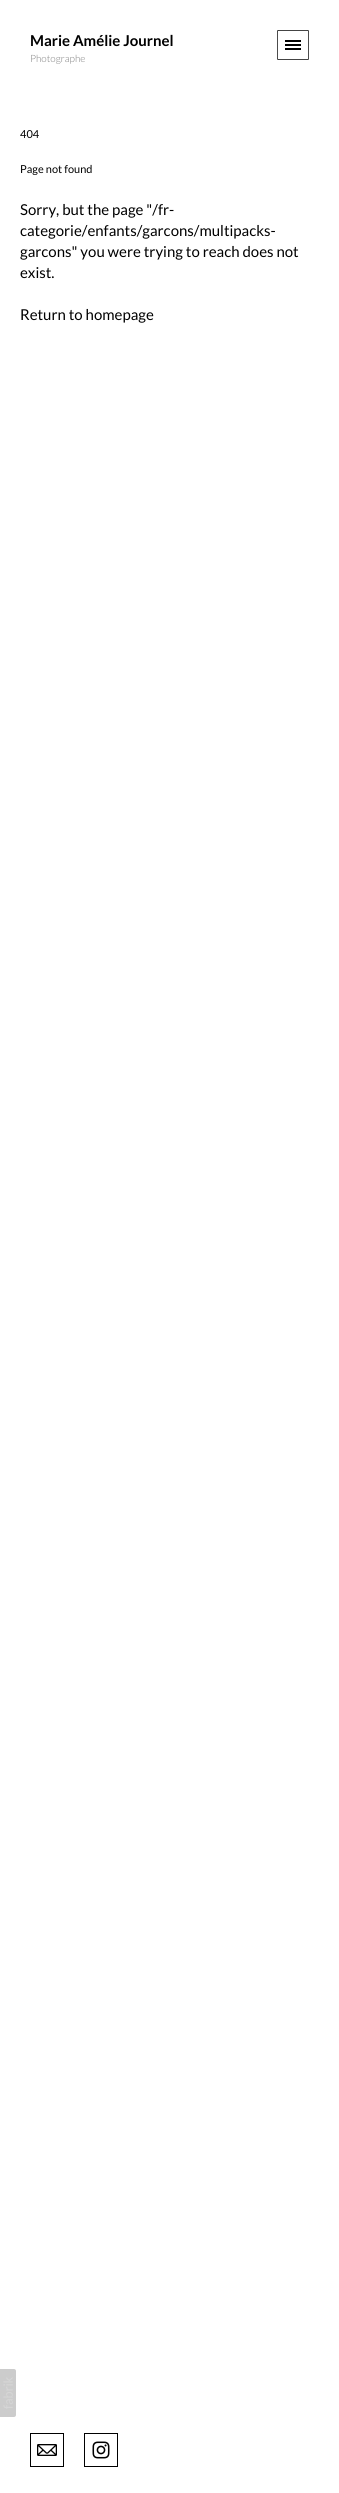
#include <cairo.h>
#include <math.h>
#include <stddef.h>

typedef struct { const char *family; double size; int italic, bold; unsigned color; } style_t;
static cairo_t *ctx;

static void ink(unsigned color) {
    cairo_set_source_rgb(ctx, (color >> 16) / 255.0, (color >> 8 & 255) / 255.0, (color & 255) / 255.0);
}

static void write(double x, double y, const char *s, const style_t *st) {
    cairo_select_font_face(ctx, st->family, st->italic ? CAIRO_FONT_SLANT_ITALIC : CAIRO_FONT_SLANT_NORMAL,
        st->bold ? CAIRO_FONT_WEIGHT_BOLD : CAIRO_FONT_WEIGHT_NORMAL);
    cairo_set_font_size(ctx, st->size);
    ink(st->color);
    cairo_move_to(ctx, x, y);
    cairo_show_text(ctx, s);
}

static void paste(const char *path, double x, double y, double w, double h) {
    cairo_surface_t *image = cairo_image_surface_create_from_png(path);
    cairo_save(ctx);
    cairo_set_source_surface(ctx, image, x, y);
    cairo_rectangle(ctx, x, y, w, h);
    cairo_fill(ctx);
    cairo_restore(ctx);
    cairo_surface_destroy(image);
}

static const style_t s1 = {"Lato", 15, 0, 1, 0x000000};
static const style_t s2 = {"Lato Light", 10, 0, 0, 0x7c7c7c};
static const style_t s3 = {"Lato", 11, 0, 0, 0x000000};
static const style_t s4 = {"Lato", 15, 0, 0, 0x000000};

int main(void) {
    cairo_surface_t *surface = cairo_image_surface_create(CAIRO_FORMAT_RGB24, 339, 2493);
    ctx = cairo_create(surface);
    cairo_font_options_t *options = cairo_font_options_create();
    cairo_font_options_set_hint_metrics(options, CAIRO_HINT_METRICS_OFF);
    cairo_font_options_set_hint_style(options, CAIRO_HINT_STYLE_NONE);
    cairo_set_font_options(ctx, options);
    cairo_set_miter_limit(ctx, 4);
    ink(0xffffff);
    cairo_paint(ctx);
    write(30, 46, "Marie Amélie Journel", &s1);
    write(30, 62, "Photographe", &s2);
    paste("pic1.png", 277, 30, 32, 30);
    write(20, 138, "404", &s3);
    write(20, 173, "Page not found", &s3);
    write(20, 215, "Sorry, but the page \"/fr-", &s4);
    write(20, 236, "categorie/enfants/garcons/multipacks-", &s4);
    write(20, 257, "garcons\" you were trying to reach does not", &s4);
    write(20, 278, "exist.", &s4);
    write(20, 320, "Return to homepage", &s4);
    paste("pic2.png", 0, 2369, 16, 48);
    cairo_rectangle(ctx, 30.5, 2433.5, 33, 33);
    cairo_set_line_width(ctx, 1);
    cairo_stroke(ctx);
    paste("pic3.png", 37, 2444, 20, 12);
    cairo_rectangle(ctx, 84.5, 2433.5, 33, 33);
    cairo_stroke(ctx);
    paste("pic4.png", 92, 2441, 18, 18);
    cairo_surface_write_to_png(surface, "screenshot.png");
    cairo_font_options_destroy(options);
    cairo_destroy(ctx);
    cairo_surface_destroy(surface);
    return 0;
}
